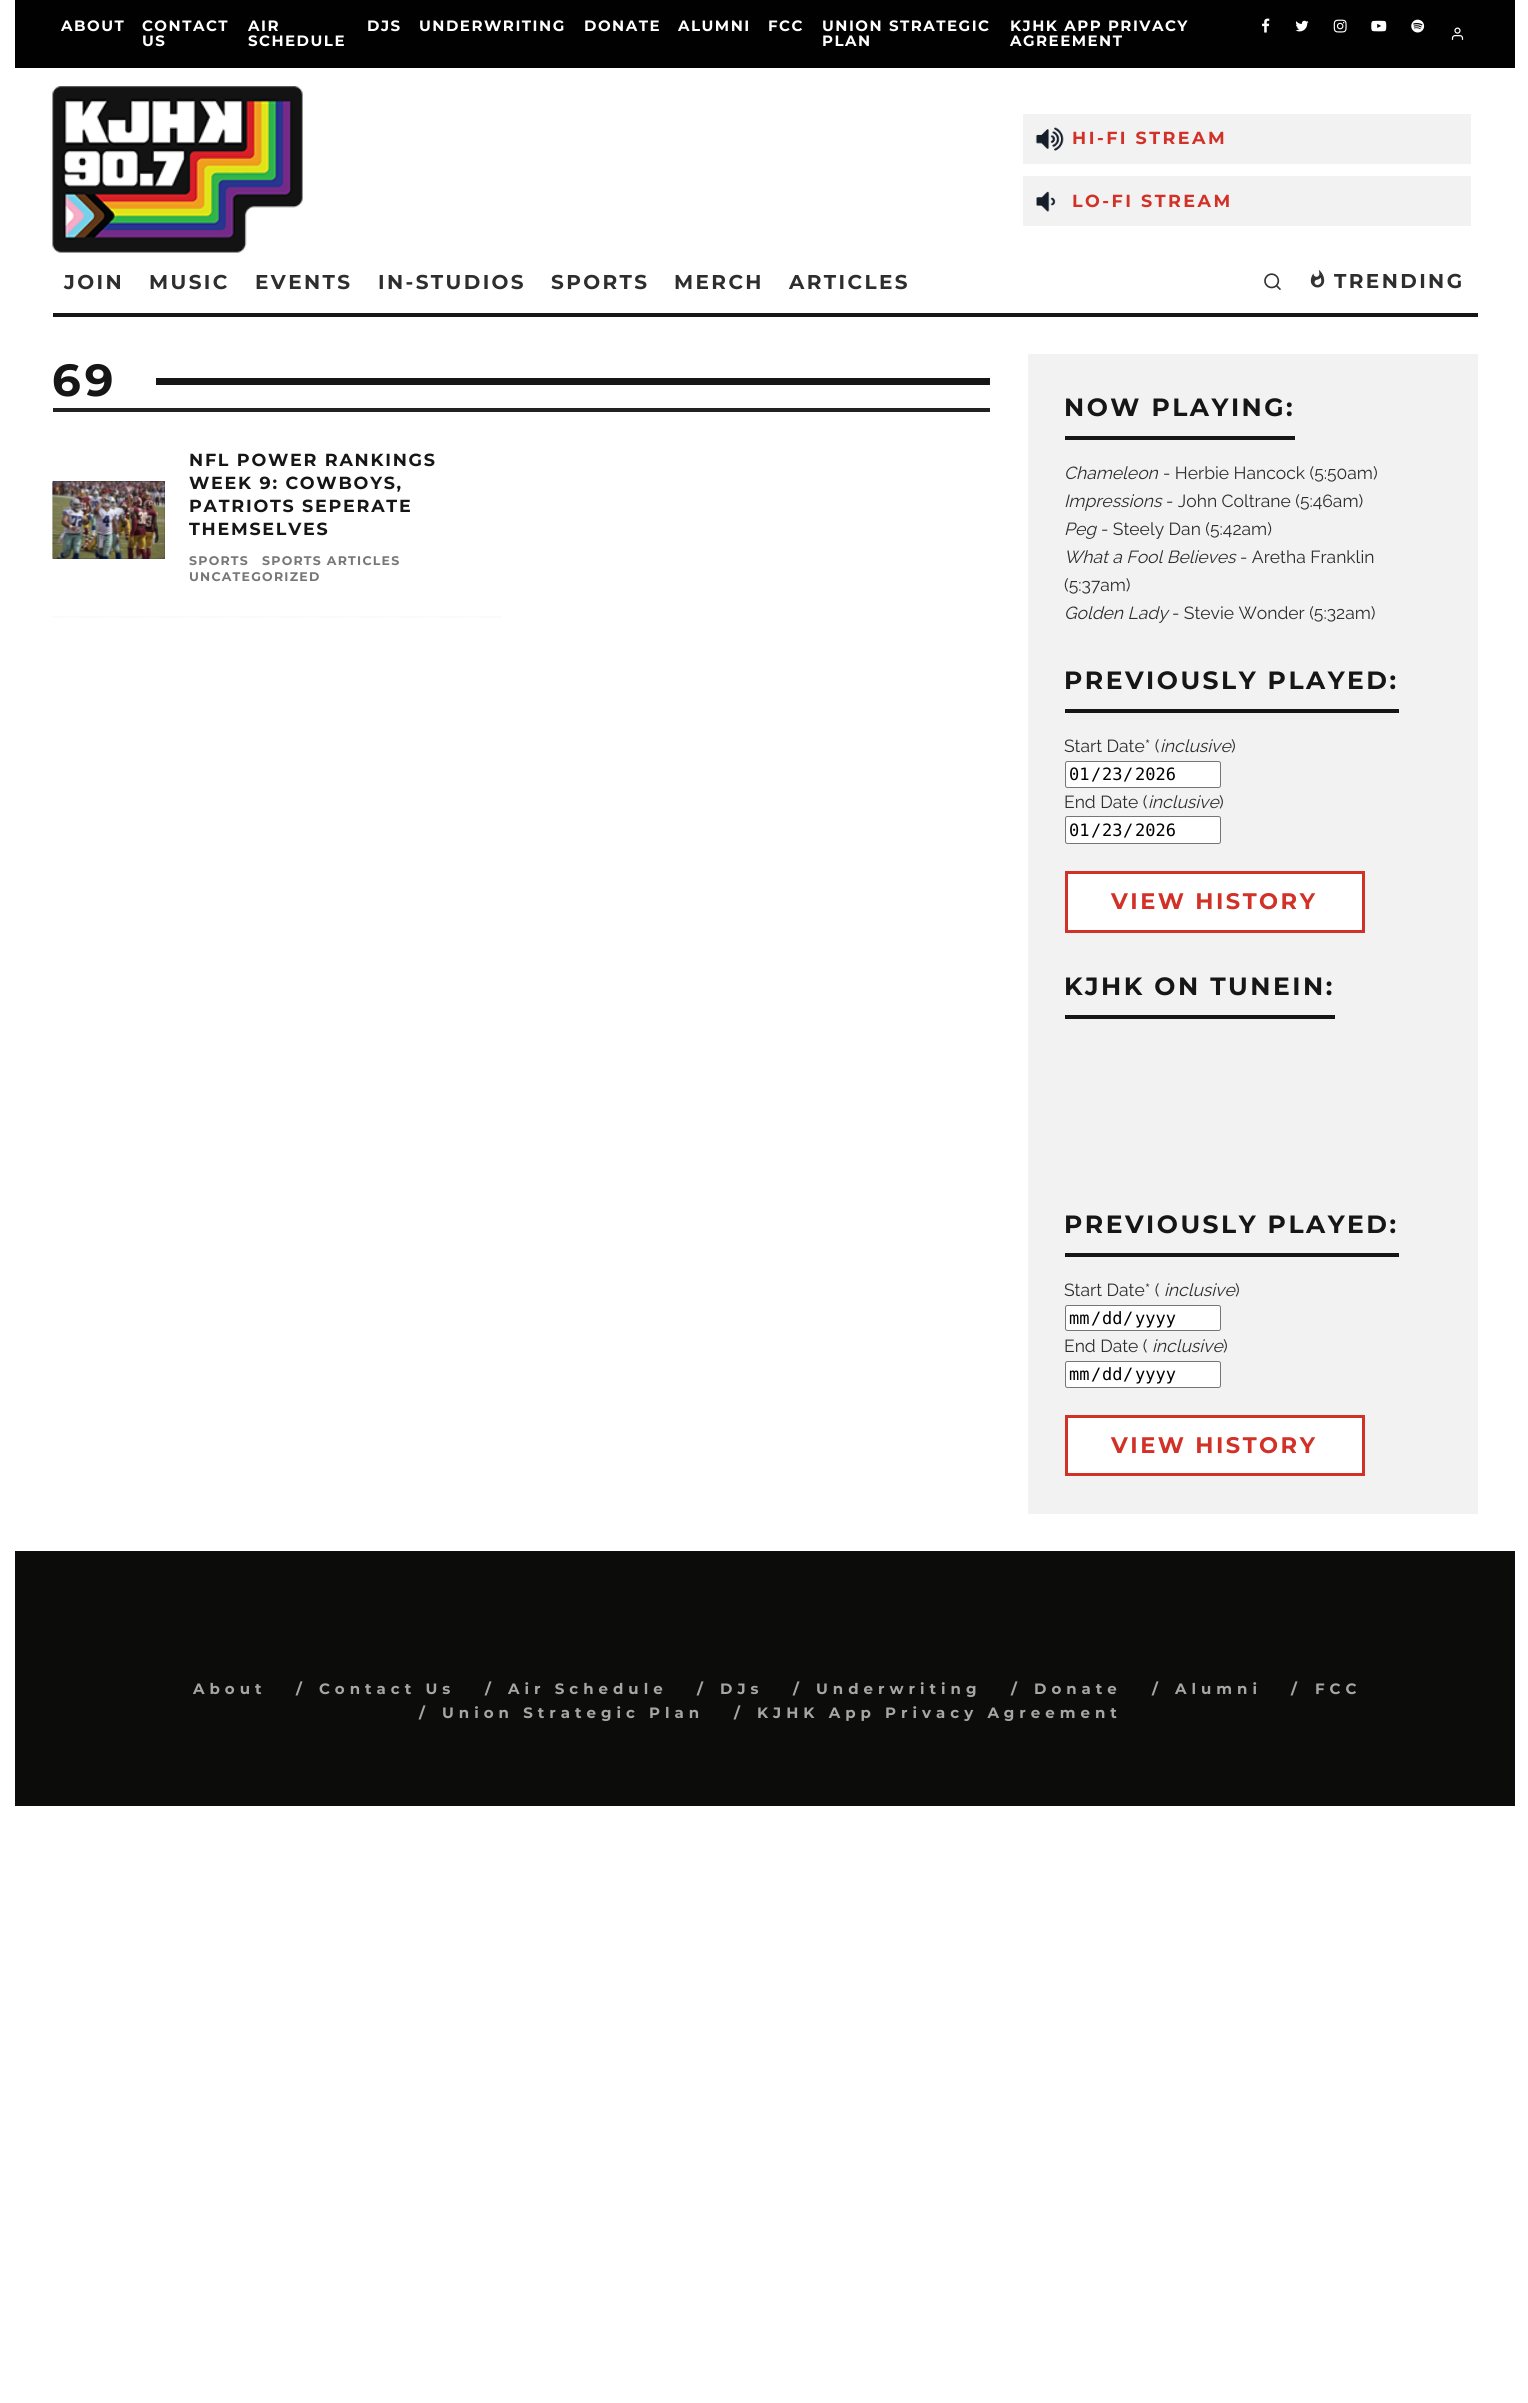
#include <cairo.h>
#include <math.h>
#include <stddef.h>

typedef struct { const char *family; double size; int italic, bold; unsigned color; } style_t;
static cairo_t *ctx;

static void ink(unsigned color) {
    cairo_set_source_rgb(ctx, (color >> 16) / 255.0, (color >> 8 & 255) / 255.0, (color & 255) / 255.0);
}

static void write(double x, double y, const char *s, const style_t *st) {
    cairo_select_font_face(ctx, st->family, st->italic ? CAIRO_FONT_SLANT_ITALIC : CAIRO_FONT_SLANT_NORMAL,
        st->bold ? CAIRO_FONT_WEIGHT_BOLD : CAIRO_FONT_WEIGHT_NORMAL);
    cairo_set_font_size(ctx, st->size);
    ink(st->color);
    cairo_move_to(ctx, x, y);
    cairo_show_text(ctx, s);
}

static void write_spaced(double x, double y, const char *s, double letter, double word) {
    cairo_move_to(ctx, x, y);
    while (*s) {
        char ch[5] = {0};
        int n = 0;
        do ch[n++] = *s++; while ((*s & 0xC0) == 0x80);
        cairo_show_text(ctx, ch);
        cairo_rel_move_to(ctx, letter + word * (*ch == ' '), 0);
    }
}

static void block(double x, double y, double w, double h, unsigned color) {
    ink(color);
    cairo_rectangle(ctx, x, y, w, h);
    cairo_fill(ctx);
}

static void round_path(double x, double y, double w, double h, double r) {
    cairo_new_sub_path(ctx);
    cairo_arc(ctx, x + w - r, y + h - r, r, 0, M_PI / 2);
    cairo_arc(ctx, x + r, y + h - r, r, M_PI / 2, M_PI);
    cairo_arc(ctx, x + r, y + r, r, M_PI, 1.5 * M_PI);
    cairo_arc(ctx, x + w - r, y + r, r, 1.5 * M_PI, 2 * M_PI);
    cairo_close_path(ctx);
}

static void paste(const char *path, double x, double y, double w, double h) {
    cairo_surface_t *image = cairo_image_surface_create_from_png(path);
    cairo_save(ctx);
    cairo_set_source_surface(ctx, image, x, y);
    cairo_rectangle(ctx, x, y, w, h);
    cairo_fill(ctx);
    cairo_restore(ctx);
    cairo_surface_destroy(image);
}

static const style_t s1 = {"Raleway", 17.5, 1, 0, 0x2e2e2e};
static const style_t s2 = {"Raleway", 17.5, 0, 0, 0x2e2e2e};
static const style_t s3 = {"DejaVu Sans Mono", 17, 0, 0, 0x000000};

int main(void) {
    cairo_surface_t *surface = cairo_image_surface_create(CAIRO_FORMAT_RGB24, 1528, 2403);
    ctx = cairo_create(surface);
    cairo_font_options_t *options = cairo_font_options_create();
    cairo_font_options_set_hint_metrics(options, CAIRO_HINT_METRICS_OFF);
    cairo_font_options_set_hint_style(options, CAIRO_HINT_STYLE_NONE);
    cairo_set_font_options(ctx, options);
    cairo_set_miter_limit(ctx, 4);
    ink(0xffffff);
    cairo_paint(ctx);
    block(15, 0, 1500, 68, 0x010101);
    cairo_select_font_face(ctx, "Montserrat", CAIRO_FONT_SLANT_NORMAL, CAIRO_FONT_WEIGHT_BOLD);
    cairo_set_font_size(ctx, 15);
    ink(0xffffff);
    write_spaced(61, 31, "ABOUT", 1.5, 0);
    write_spaced(142, 31, "CONTACT", 1.5, 0);
    write_spaced(142, 46, "US", 1.5, 0);
    write_spaced(248, 31, "AIR", 1.5, 0);
    write_spaced(248, 46, "SCHEDULE", 1.5, 0);
    write_spaced(367, 31, "DJS", 1.5, 0);
    write_spaced(419, 31, "UNDERWRITING", 1.5, 0);
    write_spaced(584, 31, "DONATE", 1.5, 0);
    write_spaced(678, 31, "ALUMNI", 1.5, 0);
    write_spaced(768, 31, "FCC", 1.5, 0);
    write_spaced(822, 31, "UNION STRATEGIC", 1.5, 0);
    write_spaced(822, 46, "PLAN", 1.5, 0);
    write_spaced(1010, 31, "KJHK APP PRIVACY", 1.5, 0);
    write_spaced(1010, 46, "AGREEMENT", 1.5, 0);
    paste("pic1.png", 1262, 18, 8, 15);
    paste("pic2.png", 1295, 20, 14, 12);
    paste("pic3.png", 1333, 19, 14, 14);
    paste("pic4.png", 1371, 20, 16, 12);
    paste("pic5.png", 1411, 19, 14, 14);
    paste("pic6.png", 1451, 27, 13, 13);
    paste("pic7.png", 52, 86, 251, 167);
    block(1023, 114, 448, 50, 0xf2f2f2);
    paste("pic8.png", 1035, 127, 29, 24);
    cairo_set_font_size(ctx, 17.5);
    ink(0xd13127);
    write_spaced(1072, 144, "HI-FI STREAM", 2.5, 0);
    block(1023, 176, 448, 50, 0xf2f2f2);
    paste("pic9.png", 1036, 191, 20, 21);
    ink(0xd13127);
    write_spaced(1072, 207, "LO-FI STREAM", 2.5, 0);
    block(53, 313, 1425, 4, 0x161616);
    cairo_set_font_size(ctx, 20);
    ink(0x2e2e2e);
    write_spaced(64, 289, "JOIN", 2.4, 0);
    write_spaced(149, 289, "MUSIC", 2.4, 0);
    write_spaced(255, 289, "EVENTS", 2.4, 0);
    write_spaced(378, 289, "IN-STUDIOS", 2.4, 0);
    write_spaced(551, 289, "SPORTS", 2.4, 0);
    write_spaced(674, 289, "MERCH", 2.4, 0);
    write_spaced(789, 289, "ARTICLES", 2.4, 0);
    paste("pic10.png", 1264, 273, 17, 17);
    paste("pic11.png", 1310, 269, 15, 19);
    write_spaced(1334, 288, "TRENDING", 2.4, 0);
    block(53, 408, 937, 4, 0x222222);
    cairo_set_font_size(ctx, 45);
    ink(0x161616);
    write_spaced(52, 396, "69", 4, 0);
    block(156, 378, 834, 7, 0x161616);
    cairo_new_path(ctx);
    cairo_move_to(ctx, 52.5, 617);
    cairo_line_to(ctx, 502.5, 617);
    ink(0xf2f2f2);
    cairo_set_line_width(ctx, 1.2);
    cairo_set_dash(ctx, (double[]){1.25, 1.25}, 2, 0);
    cairo_stroke(ctx);
    block(53, 481, 112, 78, 0x222222);
    paste("pic12.png", 52, 481, 113, 78);
    cairo_set_font_size(ctx, 17.5);
    ink(0x161616);
    write_spaced(189, 466, "NFL POWER RANKINGS", 1.75, 0);
    write_spaced(189, 489, "WEEK 9: COWBOYS,", 1.75, 0);
    write_spaced(189, 512, "PATRIOTS SEPERATE", 1.75, 0);
    write_spaced(189, 535, "THEMSELVES", 1.75, 0);
    cairo_set_font_size(ctx, 12.5);
    ink(0x777777);
    write_spaced(189, 565, "SPORTS", 1.25, 0);
    write_spaced(262, 565, "SPORTS ARTICLES", 1.25, 0);
    write_spaced(189, 581, "UNCATEGORIZED", 1.25, 0);
    block(1028, 354, 450, 1160, 0xf2f2f2);
    block(1065, 436, 230, 4, 0x161616);
    cairo_set_font_size(ctx, 25);
    write_spaced(1064, 416, "NOW PLAYING:", 2.5, 0);
    write(1064, 479, "Chameleon", &s1);
    write(1163, 479, "- Herbie Hancock (5:50am)", &s2);
    write(1064, 507, "Impressions", &s1);
    write(1166, 507, "- John Coltrane (5:46am)", &s2);
    write(1064, 535, "Peg", &s1);
    write(1101, 535, "- Steely Dan (5:42am)", &s2);
    write(1064, 563, "What a Fool Believes", &s1);
    write(1240, 563, "- Aretha Franklin", &s2);
    write(1064, 591, "(5:37am)", &s2);
    write(1064, 619, "Golden Lady", &s1);
    write(1172, 619, "- Stevie Wonder (5:32am)", &s2);
    block(1065, 709, 334, 4, 0x161616);
    cairo_select_font_face(ctx, "Montserrat", CAIRO_FONT_SLANT_NORMAL, CAIRO_FONT_WEIGHT_BOLD);
    cairo_set_font_size(ctx, 25);
    write_spaced(1064, 689, "PREVIOUSLY PLAYED:", 2.5, 0);
    write(1064, 752, "Start Date* (", &s2);
    write(1160, 752, "inclusive", &s1);
    write(1231, 752, ")", &s2);
    ink(0xffffff);
    round_path(1065.5, 761.5, 155, 26, 2);
    cairo_fill_preserve(ctx);
    ink(0x767676);
    cairo_set_line_width(ctx, 1);
    cairo_set_dash(ctx, NULL, 0, 0);
    cairo_stroke(ctx);
    write(1069, 780, "01", &s3);
    write(1091, 780, "/", &s3);
    write(1102, 780, "23", &s3);
    write(1123, 780, "/", &s3);
    write(1135, 780, "2026", &s3);
    write(1064, 808, "End Date (", &s2);
    write(1148, 808, "inclusive", &s1);
    write(1219, 808, ")", &s2);
    ink(0xffffff);
    round_path(1065.5, 816.5, 155, 27, 2);
    cairo_fill_preserve(ctx);
    ink(0x767676);
    cairo_stroke(ctx);
    write(1069, 836, "01", &s3);
    write(1091, 836, "/", &s3);
    write(1102, 836, "23", &s3);
    write(1123, 836, "/", &s3);
    write(1135, 836, "2026", &s3);
    ink(0xffffff);
    cairo_rectangle(ctx, 1066.5, 872.5, 297, 59);
    cairo_fill_preserve(ctx);
    ink(0xd13127);
    cairo_set_line_width(ctx, 3);
    cairo_stroke(ctx);
    cairo_select_font_face(ctx, "Montserrat", CAIRO_FONT_SLANT_NORMAL, CAIRO_FONT_WEIGHT_BOLD);
    cairo_set_font_size(ctx, 22.5);
    write_spaced(1111, 909, "VIEW HISTORY", 2.5, 0);
    block(1065, 1015, 270, 4, 0x161616);
    cairo_set_font_size(ctx, 25);
    write_spaced(1064, 995, "KJHK ON TUNEIN:", 2.5, 0);
    block(1065, 1253, 334, 4, 0x161616);
    write_spaced(1064, 1233, "PREVIOUSLY PLAYED:", 2.5, 0);
    write(1064, 1296, "Start Date* (", &s2);
    write(1164, 1296, "inclusive", &s1);
    write(1235, 1296, ")", &s2);
    ink(0xffffff);
    round_path(1065.5, 1305.5, 155, 25, 2);
    cairo_fill_preserve(ctx);
    ink(0x767676);
    cairo_set_line_width(ctx, 1);
    cairo_stroke(ctx);
    write(1069, 1324, "mm", &s3);
    write(1091, 1324, "/", &s3);
    write(1102, 1324, "dd", &s3);
    write(1123, 1324, "/", &s3);
    write(1135, 1324, "yyyy", &s3);
    write(1064, 1352, "End Date (", &s2);
    write(1152, 1352, "inclusive", &s1);
    write(1223, 1352, ")", &s2);
    ink(0xffffff);
    round_path(1065.5, 1361.5, 155, 26, 2);
    cairo_fill_preserve(ctx);
    ink(0x767676);
    cairo_stroke(ctx);
    write(1069, 1380, "mm", &s3);
    write(1091, 1380, "/", &s3);
    write(1102, 1380, "dd", &s3);
    write(1123, 1380, "/", &s3);
    write(1135, 1380, "yyyy", &s3);
    ink(0xffffff);
    cairo_rectangle(ctx, 1066.5, 1416.5, 297, 58);
    cairo_fill_preserve(ctx);
    ink(0xd13127);
    cairo_set_line_width(ctx, 3);
    cairo_stroke(ctx);
    cairo_select_font_face(ctx, "Montserrat", CAIRO_FONT_SLANT_NORMAL, CAIRO_FONT_WEIGHT_BOLD);
    cairo_set_font_size(ctx, 22.5);
    write_spaced(1111, 1453, "VIEW HISTORY", 2.5, 0);
    block(15, 1551, 1500, 255, 0x0c0c0b);
    cairo_set_font_size(ctx, 15);
    ink(0xa6a6a6);
    write_spaced(193, 1694, "About", 5, 0);
    write_spaced(296, 1694, "/", 5, 0);
    write_spaced(319, 1694, "Contact Us", 5, 0);
    write_spaced(485, 1694, "/", 5, 0);
    write_spaced(508, 1694, "Air Schedule", 5, 0);
    write_spaced(697, 1694, "/", 5, 0);
    write_spaced(720, 1694, "DJs", 5, 0);
    write_spaced(793, 1694, "/", 5, 0);
    write_spaced(816, 1694, "Underwriting", 5, 0);
    write_spaced(1011, 1694, "/", 5, 0);
    write_spaced(1034, 1694, "Donate", 5, 0);
    write_spaced(1152, 1694, "/", 5, 0);
    write_spaced(1175, 1694, "Alumni", 5, 0);
    write_spaced(1291, 1694, "/", 5, 0);
    write_spaced(1315, 1694, "FCC", 5, 0);
    write_spaced(419, 1718, "/", 5, 0);
    write_spaced(442, 1718, "Union Strategic Plan", 5, 0);
    write_spaced(734, 1718, "/", 5, 0);
    write_spaced(757, 1718, "KJHK App Privacy Agreement", 5, 0);
    cairo_surface_write_to_png(surface, "screenshot.png");
    cairo_font_options_destroy(options);
    cairo_destroy(ctx);
    cairo_surface_destroy(surface);
    return 0;
}
